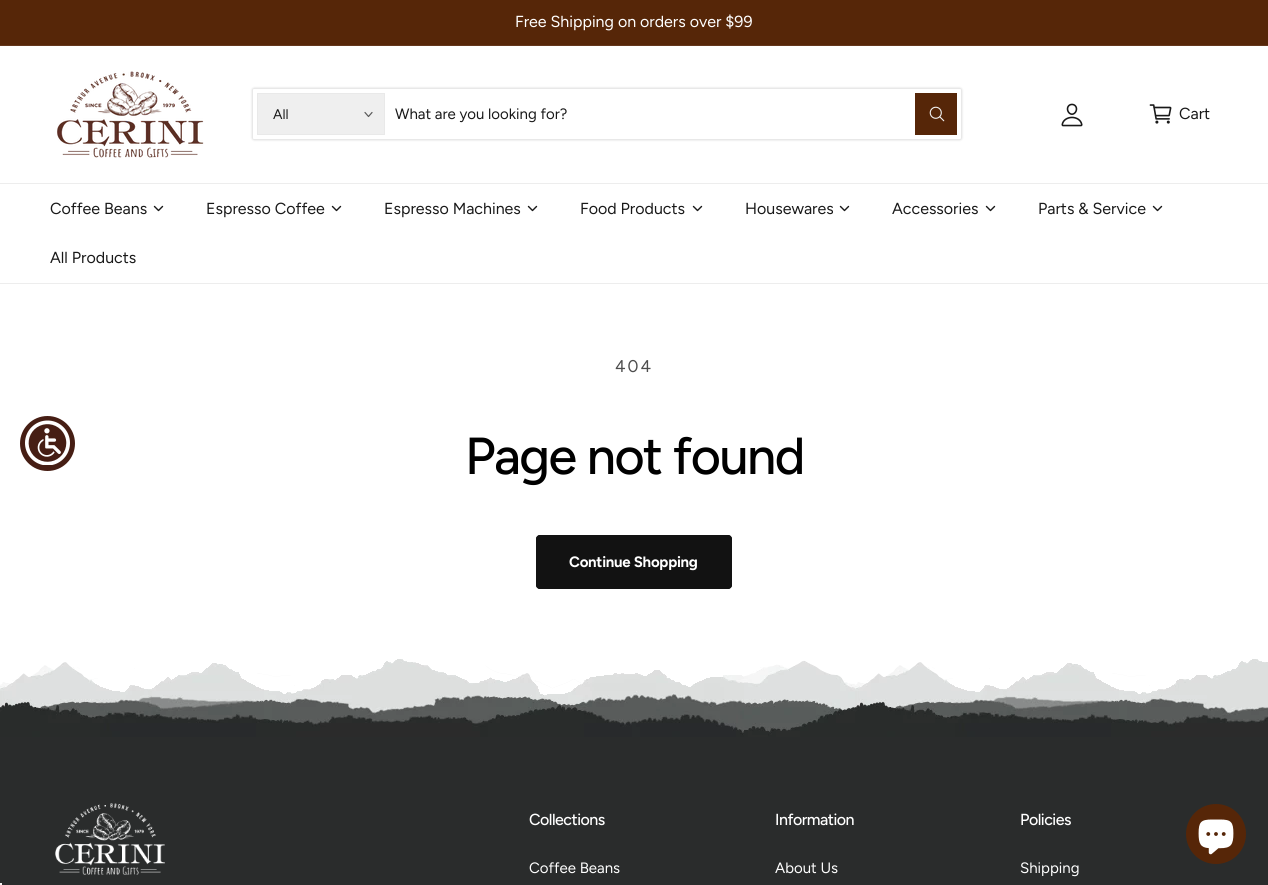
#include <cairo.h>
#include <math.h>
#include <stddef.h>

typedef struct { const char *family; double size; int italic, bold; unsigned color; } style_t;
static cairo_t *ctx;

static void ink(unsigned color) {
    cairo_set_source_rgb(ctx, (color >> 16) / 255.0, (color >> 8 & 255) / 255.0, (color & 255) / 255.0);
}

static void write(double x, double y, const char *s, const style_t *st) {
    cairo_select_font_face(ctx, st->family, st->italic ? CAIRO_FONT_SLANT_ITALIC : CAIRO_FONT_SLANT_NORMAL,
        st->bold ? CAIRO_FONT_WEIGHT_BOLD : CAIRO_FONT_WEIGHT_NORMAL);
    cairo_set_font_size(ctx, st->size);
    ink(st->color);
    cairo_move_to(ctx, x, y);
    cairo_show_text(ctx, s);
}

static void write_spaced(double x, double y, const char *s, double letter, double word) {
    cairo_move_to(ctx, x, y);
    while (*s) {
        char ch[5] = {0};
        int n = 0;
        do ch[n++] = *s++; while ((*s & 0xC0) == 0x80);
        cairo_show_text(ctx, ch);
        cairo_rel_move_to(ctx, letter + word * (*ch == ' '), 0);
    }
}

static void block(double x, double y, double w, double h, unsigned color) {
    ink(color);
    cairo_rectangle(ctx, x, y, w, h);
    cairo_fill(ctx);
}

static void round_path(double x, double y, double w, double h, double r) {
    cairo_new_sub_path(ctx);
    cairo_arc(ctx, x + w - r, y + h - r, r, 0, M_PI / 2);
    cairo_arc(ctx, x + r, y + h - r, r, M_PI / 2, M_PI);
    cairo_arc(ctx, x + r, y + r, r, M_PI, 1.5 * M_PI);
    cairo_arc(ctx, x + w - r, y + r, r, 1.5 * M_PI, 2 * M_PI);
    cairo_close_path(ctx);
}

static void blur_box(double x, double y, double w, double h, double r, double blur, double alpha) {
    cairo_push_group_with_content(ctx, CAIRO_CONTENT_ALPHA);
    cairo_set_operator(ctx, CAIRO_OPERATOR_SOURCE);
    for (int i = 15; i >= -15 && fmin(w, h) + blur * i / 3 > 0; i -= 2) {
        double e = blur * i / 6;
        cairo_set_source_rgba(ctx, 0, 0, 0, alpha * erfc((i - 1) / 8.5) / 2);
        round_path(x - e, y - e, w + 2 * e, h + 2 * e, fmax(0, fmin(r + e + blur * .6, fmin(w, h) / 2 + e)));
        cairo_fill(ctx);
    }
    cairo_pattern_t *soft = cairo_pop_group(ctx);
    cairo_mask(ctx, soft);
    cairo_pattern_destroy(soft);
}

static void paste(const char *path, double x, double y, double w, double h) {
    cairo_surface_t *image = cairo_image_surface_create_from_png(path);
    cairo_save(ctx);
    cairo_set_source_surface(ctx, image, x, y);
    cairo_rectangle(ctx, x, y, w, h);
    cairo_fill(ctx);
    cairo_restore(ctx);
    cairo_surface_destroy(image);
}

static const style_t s1 = {"Figtree", 16, 0, 0, 0xffffff};
static const style_t s2 = {"Figtree", 14, 0, 0, 0x191919};
static const style_t s3 = {"Figtree", 15, 0, 0, 0x191919};
static const style_t s4 = {"Figtree", 16, 0, 0, 0x191919};
static const style_t s5 = {"Figtree", 15, 0, 0, 0xffffff};

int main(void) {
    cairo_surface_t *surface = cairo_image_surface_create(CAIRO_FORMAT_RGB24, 1268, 885);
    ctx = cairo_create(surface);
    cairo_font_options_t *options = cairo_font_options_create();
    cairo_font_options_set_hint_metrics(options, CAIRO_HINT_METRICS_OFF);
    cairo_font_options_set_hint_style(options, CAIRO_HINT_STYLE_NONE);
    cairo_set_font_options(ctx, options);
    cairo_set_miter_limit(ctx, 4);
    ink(0xffffff);
    cairo_paint(ctx);
    block(0, 0, 1268, 45, 0x562608);
    block(0, 45, 1268, 1, 0x64371c);
    write(515, 27, "Free Shipping on orders over $99", &s1);
    paste("pic1.png", 57, 71, 147, 87);
    ink(0xefefef);
    cairo_rectangle(ctx, 257.5, 93.5, 127, 41);
    cairo_fill_preserve(ctx);
    ink(0xe9e9e9);
    cairo_set_line_width(ctx, 1);
    cairo_stroke(ctx);
    cairo_new_path(ctx);
    cairo_move_to(ctx, 365, 112.5);
    cairo_line_to(ctx, 368.5, 116.5);
    cairo_line_to(ctx, 372, 112.5);
    ink(0x595959);
    cairo_set_line_width(ctx, 1.2);
    cairo_set_line_cap(ctx, CAIRO_LINE_CAP_ROUND);
    cairo_set_line_join(ctx, CAIRO_LINE_JOIN_ROUND);
    cairo_stroke(ctx);
    block(915, 93, 42, 42, 0x562608);
    paste("pic2.png", 929, 106, 16, 16);
    cairo_save(ctx);
    cairo_set_fill_rule(ctx, CAIRO_FILL_RULE_EVEN_ODD);
    cairo_new_path(ctx);
    cairo_move_to(ctx, 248, 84);
    cairo_line_to(ctx, 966, 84);
    cairo_line_to(ctx, 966, 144);
    cairo_line_to(ctx, 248, 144);
    cairo_close_path(ctx);
    cairo_move_to(ctx, 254, 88);
    cairo_line_to(ctx, 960, 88);
    cairo_curve_to(ctx, 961, 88, 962, 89, 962, 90);
    cairo_line_to(ctx, 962, 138);
    cairo_curve_to(ctx, 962, 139, 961, 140, 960, 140);
    cairo_line_to(ctx, 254, 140);
    cairo_curve_to(ctx, 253, 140, 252, 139, 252, 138);
    cairo_line_to(ctx, 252, 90);
    cairo_curve_to(ctx, 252, 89, 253, 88, 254, 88);
    cairo_close_path(ctx);
    cairo_clip(ctx);
    ink(0x000000);
    blur_box(252, 88, 710, 52, 2, 1, 0.15);
    cairo_restore(ctx);
    round_path(252.5, 88.5, 709, 51, 1.5);
    ink(0xe8e8e8);
    cairo_set_line_width(ctx, 1);
    cairo_set_line_cap(ctx, CAIRO_LINE_CAP_BUTT);
    cairo_set_line_join(ctx, CAIRO_LINE_JOIN_MITER);
    cairo_stroke(ctx);
    write(273, 119, "All", &s2);
    write(395, 119, "What are you looking for?", &s3);
    paste("pic3.png", 1061, 103, 22, 24);
    paste("pic4.png", 1149, 104, 23, 20);
    write(1179, 119, "Cart", &s4);
    block(0, 183, 1268, 1, 0xededed);
    block(0, 283, 1268, 1, 0xededed);
    write(50, 214, "Coffee Beans", &s4);
    cairo_new_path(ctx);
    cairo_move_to(ctx, 154.5, 206.5);
    cairo_line_to(ctx, 158.5, 210.5);
    cairo_line_to(ctx, 162.5, 206.5);
    cairo_set_line_width(ctx, 1.4);
    cairo_set_line_cap(ctx, CAIRO_LINE_CAP_ROUND);
    cairo_set_line_join(ctx, CAIRO_LINE_JOIN_ROUND);
    cairo_stroke(ctx);
    write(206, 214, "Espresso Coffee", &s4);
    cairo_new_path(ctx);
    cairo_move_to(ctx, 332.5, 206.5);
    cairo_line_to(ctx, 336.5, 210.5);
    cairo_line_to(ctx, 340.5, 206.5);
    cairo_stroke(ctx);
    write(384, 214, "Espresso Machines", &s4);
    cairo_new_path(ctx);
    cairo_move_to(ctx, 528.5, 206.5);
    cairo_line_to(ctx, 532.5, 210.5);
    cairo_line_to(ctx, 536.5, 206.5);
    cairo_stroke(ctx);
    write(580, 214, "Food Products", &s4);
    cairo_new_path(ctx);
    cairo_move_to(ctx, 693.5, 206.5);
    cairo_line_to(ctx, 697.5, 210.5);
    cairo_line_to(ctx, 701.5, 206.5);
    cairo_stroke(ctx);
    write(745, 214, "Housewares", &s4);
    cairo_new_path(ctx);
    cairo_move_to(ctx, 840.5, 206.5);
    cairo_line_to(ctx, 844.5, 210.5);
    cairo_line_to(ctx, 848.5, 206.5);
    cairo_stroke(ctx);
    write(892, 214, "Accessories", &s4);
    cairo_new_path(ctx);
    cairo_move_to(ctx, 986.5, 206.5);
    cairo_line_to(ctx, 990.5, 210.5);
    cairo_line_to(ctx, 994.5, 206.5);
    cairo_stroke(ctx);
    write(1038, 214, "Parts & Service", &s4);
    cairo_new_path(ctx);
    cairo_move_to(ctx, 1153.5, 206.5);
    cairo_line_to(ctx, 1157.5, 210.5);
    cairo_line_to(ctx, 1161.5, 206.5);
    cairo_stroke(ctx);
    write(50, 263, "All Products", &s4);
    ink(0x461e14);
    cairo_new_path(ctx);
    cairo_arc(ctx, 47.5, 443.5, 27.5, 0, 2 * M_PI);
    cairo_fill(ctx);
    paste("pic5.png", 25, 420, 45, 45);
    cairo_set_font_size(ctx, 17);
    ink(0x4d4d4d);
    write_spaced(615, 372, "404", 2, 0);
    cairo_select_font_face(ctx, "Figtree Medium", CAIRO_FONT_SLANT_NORMAL, CAIRO_FONT_WEIGHT_NORMAL);
    cairo_set_font_size(ctx, 52);
    ink(0x000000);
    write_spaced(465, 474, "Page not found", -1.5, 0);
    ink(0x121212);
    round_path(536, 535, 196, 54, 4);
    cairo_fill(ctx);
    round_path(537, 536, 194, 52, 3);
    cairo_set_line_width(ctx, 2);
    cairo_set_line_cap(ctx, CAIRO_LINE_CAP_BUTT);
    cairo_set_line_join(ctx, CAIRO_LINE_JOIN_MITER);
    cairo_stroke(ctx);
    cairo_select_font_face(ctx, "Figtree", CAIRO_FONT_SLANT_NORMAL, CAIRO_FONT_WEIGHT_BOLD);
    cairo_set_font_size(ctx, 15);
    ink(0xffffff);
    write_spaced(569, 567, "Continue Shopping", -0.25, 0);
    paste("pic6.png", 0, 659, 1268, 78);
    block(0, 737, 1268, 148, 0x2a2c2c);
    paste("pic7.png", 55, 803, 110, 72);
    cairo_select_font_face(ctx, "Figtree Medium", CAIRO_FONT_SLANT_NORMAL, CAIRO_FONT_WEIGHT_NORMAL);
    cairo_set_font_size(ctx, 16);
    ink(0xffffff);
    write_spaced(529, 825, "Collections", -0.5, 0);
    write(529, 873, "Coffee Beans", &s5);
    cairo_select_font_face(ctx, "Figtree Medium", CAIRO_FONT_SLANT_NORMAL, CAIRO_FONT_WEIGHT_NORMAL);
    cairo_set_font_size(ctx, 16);
    write_spaced(775, 825, "Information", -0.5, 0);
    write(775, 873, "About Us", &s5);
    cairo_select_font_face(ctx, "Figtree Medium", CAIRO_FONT_SLANT_NORMAL, CAIRO_FONT_WEIGHT_NORMAL);
    cairo_set_font_size(ctx, 16);
    write_spaced(1020, 825, "Policies", -0.5, 0);
    write(1020, 873, "Shipping", &s5);
    ink(0x562608);
    cairo_new_path(ctx);
    cairo_arc(ctx, 1216, 834, 30, 0, 2 * M_PI);
    cairo_fill(ctx);
    paste("pic8.png", 1198, 819, 36, 36);
    block(0, 883, 2, 2, 0xf5f5f5);
    cairo_surface_write_to_png(surface, "screenshot.png");
    cairo_font_options_destroy(options);
    cairo_destroy(ctx);
    cairo_surface_destroy(surface);
    return 0;
}
